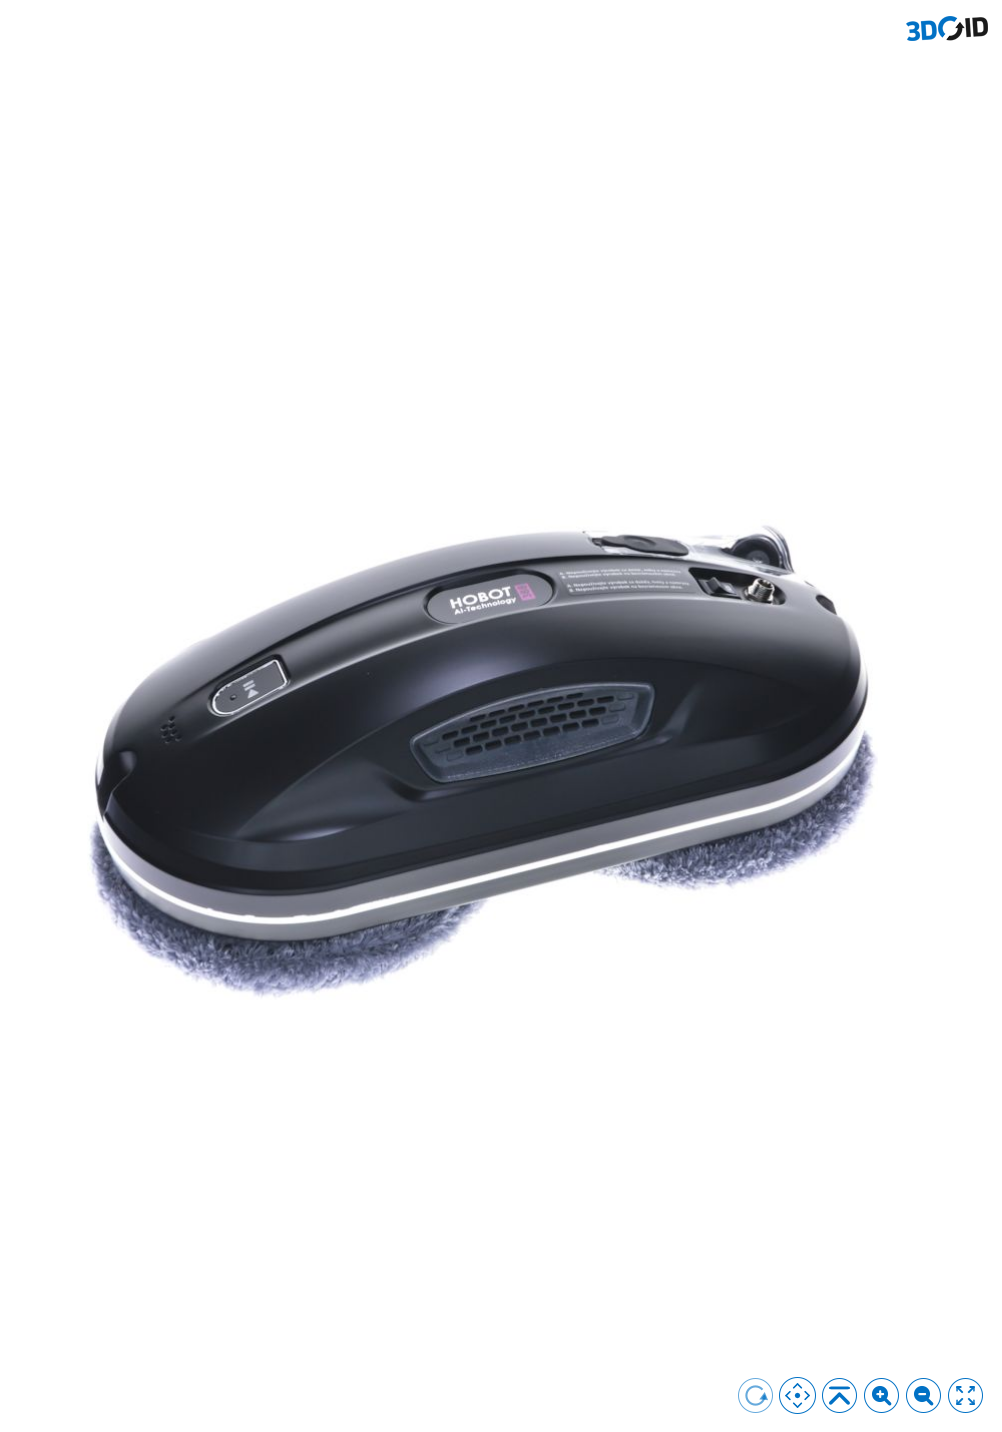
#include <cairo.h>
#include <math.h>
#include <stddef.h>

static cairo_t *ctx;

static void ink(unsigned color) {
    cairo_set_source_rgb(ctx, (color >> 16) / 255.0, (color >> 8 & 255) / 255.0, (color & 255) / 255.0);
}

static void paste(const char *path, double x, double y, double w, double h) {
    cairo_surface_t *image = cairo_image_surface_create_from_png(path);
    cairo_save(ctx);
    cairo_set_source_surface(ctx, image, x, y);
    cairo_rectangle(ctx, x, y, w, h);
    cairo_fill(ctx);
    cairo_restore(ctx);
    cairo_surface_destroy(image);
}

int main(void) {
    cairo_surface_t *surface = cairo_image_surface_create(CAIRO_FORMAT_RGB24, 1002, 1432);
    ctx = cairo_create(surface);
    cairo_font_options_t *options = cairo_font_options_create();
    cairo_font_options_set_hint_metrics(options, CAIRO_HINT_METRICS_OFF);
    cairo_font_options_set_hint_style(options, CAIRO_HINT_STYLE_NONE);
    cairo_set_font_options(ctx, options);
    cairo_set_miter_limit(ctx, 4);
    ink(0xffffff);
    cairo_paint(ctx);
    paste("pic1.png", 906, 16, 82, 25);
    paste("pic2.png", 738, 1378, 35, 35);
    paste("pic3.png", 779, 1377, 37, 37);
    paste("pic4.png", 822, 1378, 35, 35);
    paste("pic5.png", 864, 1378, 35, 35);
    paste("pic6.png", 906, 1378, 35, 35);
    paste("pic7.png", 948, 1378, 35, 35);
    paste("pic8.png", 87, 519, 791, 481);
    cairo_surface_write_to_png(surface, "screenshot.png");
    cairo_font_options_destroy(options);
    cairo_destroy(ctx);
    cairo_surface_destroy(surface);
    return 0;
}
